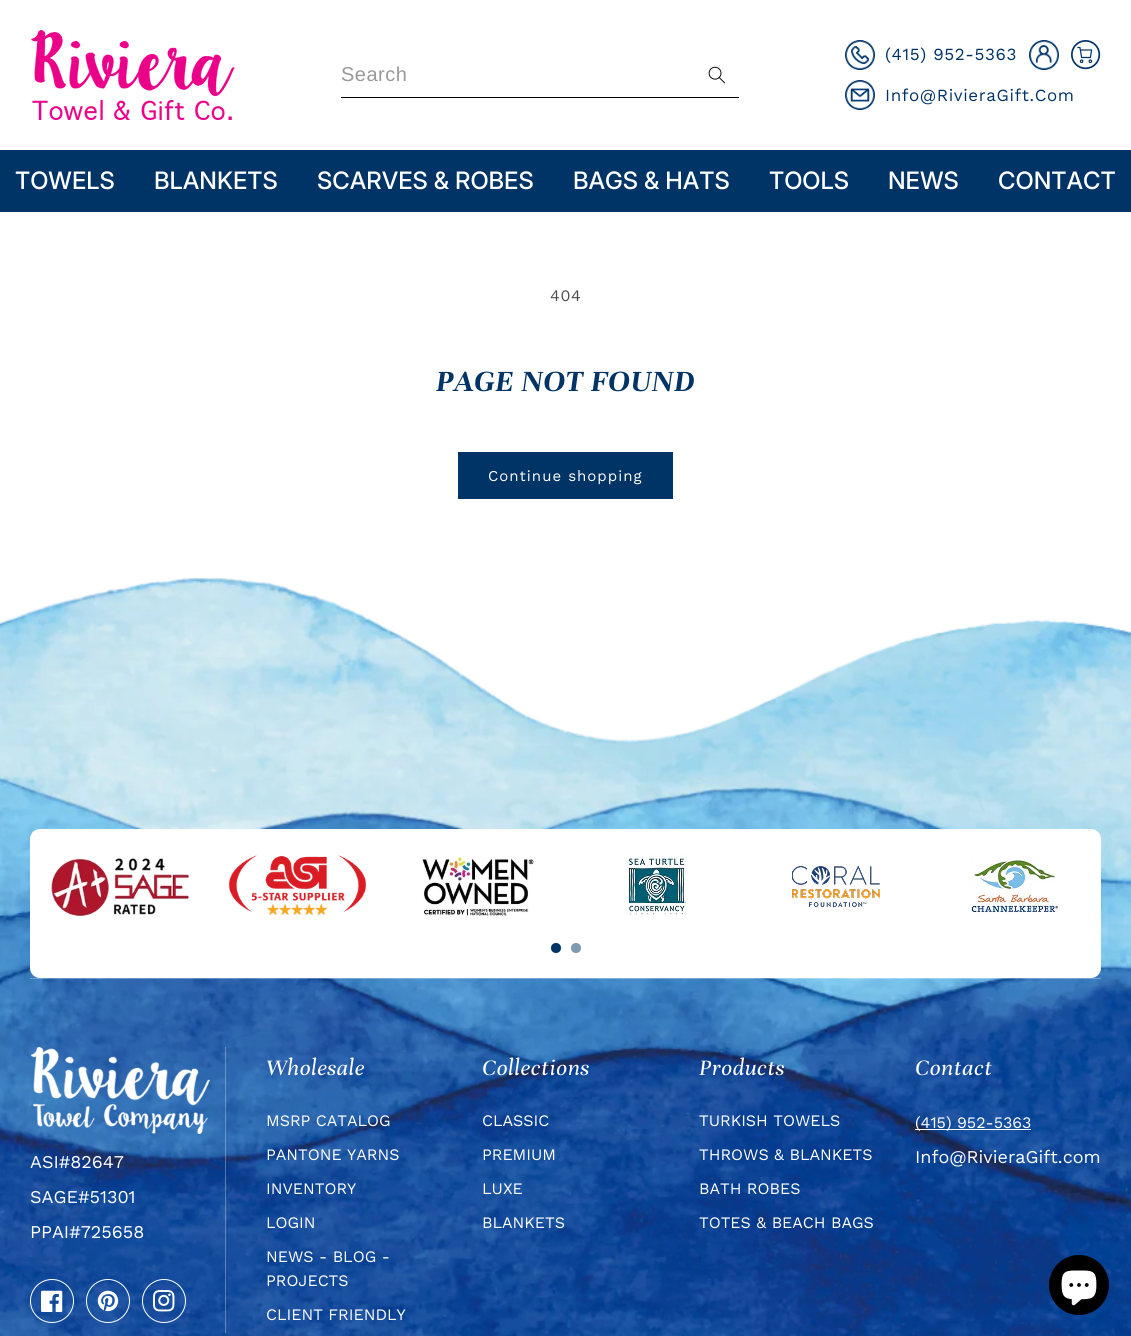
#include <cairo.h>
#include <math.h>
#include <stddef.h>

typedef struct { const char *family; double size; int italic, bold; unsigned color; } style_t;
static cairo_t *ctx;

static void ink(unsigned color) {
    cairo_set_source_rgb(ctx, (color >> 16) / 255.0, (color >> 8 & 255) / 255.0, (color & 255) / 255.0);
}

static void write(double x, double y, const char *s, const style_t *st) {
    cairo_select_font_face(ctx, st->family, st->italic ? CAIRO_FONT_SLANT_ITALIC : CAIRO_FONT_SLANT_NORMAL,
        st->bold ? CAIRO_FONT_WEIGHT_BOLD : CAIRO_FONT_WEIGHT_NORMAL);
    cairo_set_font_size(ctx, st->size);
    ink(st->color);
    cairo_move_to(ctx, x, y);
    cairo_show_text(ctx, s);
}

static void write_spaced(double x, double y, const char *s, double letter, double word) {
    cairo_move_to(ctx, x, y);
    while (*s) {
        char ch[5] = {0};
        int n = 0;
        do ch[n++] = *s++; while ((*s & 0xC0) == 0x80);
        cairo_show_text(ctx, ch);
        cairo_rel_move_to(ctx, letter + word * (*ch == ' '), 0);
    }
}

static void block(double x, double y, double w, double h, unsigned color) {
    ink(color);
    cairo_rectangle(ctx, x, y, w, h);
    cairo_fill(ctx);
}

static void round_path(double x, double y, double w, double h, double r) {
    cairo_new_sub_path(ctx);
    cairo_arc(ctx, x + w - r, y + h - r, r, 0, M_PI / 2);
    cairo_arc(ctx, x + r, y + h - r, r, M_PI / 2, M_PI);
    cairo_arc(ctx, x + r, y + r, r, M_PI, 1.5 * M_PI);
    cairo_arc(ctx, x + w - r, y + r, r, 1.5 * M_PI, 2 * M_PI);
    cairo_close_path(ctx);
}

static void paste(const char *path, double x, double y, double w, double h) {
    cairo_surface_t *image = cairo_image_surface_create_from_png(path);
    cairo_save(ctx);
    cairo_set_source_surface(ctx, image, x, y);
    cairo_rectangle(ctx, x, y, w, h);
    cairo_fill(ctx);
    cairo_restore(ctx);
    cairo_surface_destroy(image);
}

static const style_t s1 = {"Inter Medium", 24, 0, 0, 0xffffff};
static const style_t s2 = {"Work Sans", 18, 0, 0, 0xffffff};
static const style_t s3 = {"Work Sans", 16, 0, 0, 0xffffff};

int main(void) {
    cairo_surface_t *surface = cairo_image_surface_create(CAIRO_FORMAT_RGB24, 1131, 1336);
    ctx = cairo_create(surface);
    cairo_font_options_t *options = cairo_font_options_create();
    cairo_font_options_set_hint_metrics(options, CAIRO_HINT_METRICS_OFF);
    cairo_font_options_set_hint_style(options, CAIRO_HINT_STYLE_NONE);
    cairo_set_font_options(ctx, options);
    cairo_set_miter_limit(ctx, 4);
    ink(0xffffff);
    cairo_paint(ctx);
    paste("pic1.png", 31, 30, 204, 90);
    block(341, 97, 398, 1, 0x000000);
    cairo_select_font_face(ctx, "Liberation Sans", CAIRO_FONT_SLANT_NORMAL, CAIRO_FONT_WEIGHT_NORMAL);
    cairo_set_font_size(ctx, 20);
    ink(0x999999);
    write_spaced(341, 81, "Search", 0.5, 0);
    paste("pic2.png", 708, 66, 17, 18);
    paste("pic3.png", 845, 40, 30, 30);
    cairo_select_font_face(ctx, "Work Sans", CAIRO_FONT_SLANT_NORMAL, CAIRO_FONT_WEIGHT_NORMAL);
    cairo_set_font_size(ctx, 17);
    ink(0x003366);
    write_spaced(885, 60, "(415) 952-5363", 0.6, 0);
    paste("pic4.png", 1029, 40, 30, 30);
    paste("pic5.png", 1071, 40, 30, 30);
    paste("pic6.png", 845, 80, 30, 30);
    write_spaced(885, 101, "Info@RivieraGift.Com", 0.6, 0);
    block(0, 150, 1131, 61, 0x003366);
    block(0, 211, 1131, 1, 0x01305f);
    write(15, 189, "TOWELS", &s1);
    write(154, 189, "BLANKETS", &s1);
    write(317, 189, "SCARVES & ROBES", &s1);
    write(573, 189, "BAGS & HATS", &s1);
    write(769, 189, "TOOLS", &s1);
    write(888, 189, "NEWS", &s1);
    write(998, 189, "CONTACT", &s1);
    cairo_select_font_face(ctx, "Work Sans", CAIRO_FONT_SLANT_NORMAL, CAIRO_FONT_WEIGHT_NORMAL);
    cairo_set_font_size(ctx, 16);
    ink(0x4d4d4d);
    write_spaced(550, 301, "404", 0.6, 0);
    cairo_select_font_face(ctx, "Unna", CAIRO_FONT_SLANT_ITALIC, CAIRO_FONT_WEIGHT_BOLD);
    cairo_set_font_size(ctx, 32);
    ink(0x003366);
    write_spaced(436, 391, "PAGE NOT FOUND", 0.6, 0);
    block(458, 452, 215, 47, 0x003366);
    cairo_select_font_face(ctx, "Work Sans", CAIRO_FONT_SLANT_NORMAL, CAIRO_FONT_WEIGHT_NORMAL);
    cairo_set_font_size(ctx, 15);
    ink(0xffffff);
    write_spaced(488, 481, "Continue shopping", 1, 0);
    paste("pic7.png", 0, 578, 1131, 758);
    round_path(30, 829, 1071, 149, 10);
    cairo_fill(ctx);
    paste("pic8.png", 51, 858, 138, 59);
    paste("pic9.png", 228, 855, 139, 60);
    paste("pic10.png", 422, 856, 112, 60);
    paste("pic11.png", 626, 855, 62, 60);
    paste("pic12.png", 792, 866, 88, 41);
    paste("pic13.png", 970, 858, 90, 56);
    ink(0x003366);
    cairo_arc(ctx, 556, 948, 5, 0, 2 * M_PI);
    cairo_fill(ctx);
    ink(0x8099b3);
    cairo_arc(ctx, 576, 948, 5, 0, 2 * M_PI);
    cairo_fill(ctx);
    cairo_set_source_rgba(ctx, 1, 1, 1, 0.3);
    cairo_rectangle(ctx, 30, 978, 1071, 1);
    cairo_fill(ctx);
    cairo_rectangle(ctx, 225, 1047, 1, 286);
    cairo_fill(ctx);
    paste("pic14.png", 30, 1047, 180, 87);
    write(30, 1168, "ASI#82647", &s2);
    write(30, 1203, "SAGE#51301", &s2);
    write(30, 1238, "PPAI#725658", &s2);
    cairo_new_path(ctx);
    cairo_arc(ctx, 52, 1301, 21.5, 0, 2 * M_PI);
    cairo_set_line_width(ctx, 1);
    cairo_stroke(ctx);
    paste("pic15.png", 41, 1290, 22, 22);
    cairo_arc(ctx, 108, 1301, 21.5, 0, 2 * M_PI);
    cairo_stroke(ctx);
    paste("pic16.png", 97, 1290, 22, 22);
    cairo_arc(ctx, 164, 1301, 21.5, 0, 2 * M_PI);
    cairo_stroke(ctx);
    paste("pic17.png", 153, 1290, 22, 22);
    cairo_select_font_face(ctx, "Unna", CAIRO_FONT_SLANT_ITALIC, CAIRO_FONT_WEIGHT_NORMAL);
    cairo_set_font_size(ctx, 24);
    write_spaced(266, 1075, "Wholesale", 0.6, 0);
    write(266, 1126, "MSRP CATALOG", &s3);
    write(266, 1160, "PANTONE YARNS", &s3);
    write(266, 1194, "INVENTORY", &s3);
    write(266, 1228, "LOGIN", &s3);
    write(266, 1262, "NEWS - BLOG -", &s3);
    write(266, 1286, "PROJECTS", &s3);
    write(266, 1320, "CLIENT FRIENDLY", &s3);
    cairo_select_font_face(ctx, "Unna", CAIRO_FONT_SLANT_ITALIC, CAIRO_FONT_WEIGHT_NORMAL);
    cairo_set_font_size(ctx, 24);
    write_spaced(482, 1075, "Collections", 0.6, 0);
    write(482, 1126, "CLASSIC", &s3);
    write(482, 1160, "PREMIUM", &s3);
    write(482, 1194, "LUXE", &s3);
    write(482, 1228, "BLANKETS", &s3);
    cairo_select_font_face(ctx, "Unna", CAIRO_FONT_SLANT_ITALIC, CAIRO_FONT_WEIGHT_NORMAL);
    cairo_set_font_size(ctx, 24);
    write_spaced(699, 1075, "Products", 0.6, 0);
    write(699, 1126, "TURKISH TOWELS", &s3);
    write(699, 1160, "THROWS & BLANKETS", &s3);
    write(699, 1194, "BATH ROBES", &s3);
    write(699, 1228, "TOTES & BEACH BAGS", &s3);
    cairo_select_font_face(ctx, "Unna", CAIRO_FONT_SLANT_ITALIC, CAIRO_FONT_WEIGHT_NORMAL);
    cairo_set_font_size(ctx, 24);
    write_spaced(915, 1075, "Contact", 0.6, 0);
    block(915, 1129, 116, 1, 0xffffff);
    write(915, 1128, "(415) 952-5363", &s3);
    write(915, 1163, "Info@RivieraGift.com", &s2);
    ink(0x000000);
    cairo_new_path(ctx);
    cairo_arc(ctx, 1079, 1285, 30, 0, 2 * M_PI);
    cairo_fill(ctx);
    paste("pic18.png", 1061, 1270, 36, 36);
    cairo_surface_write_to_png(surface, "screenshot.png");
    cairo_font_options_destroy(options);
    cairo_destroy(ctx);
    cairo_surface_destroy(surface);
    return 0;
}
